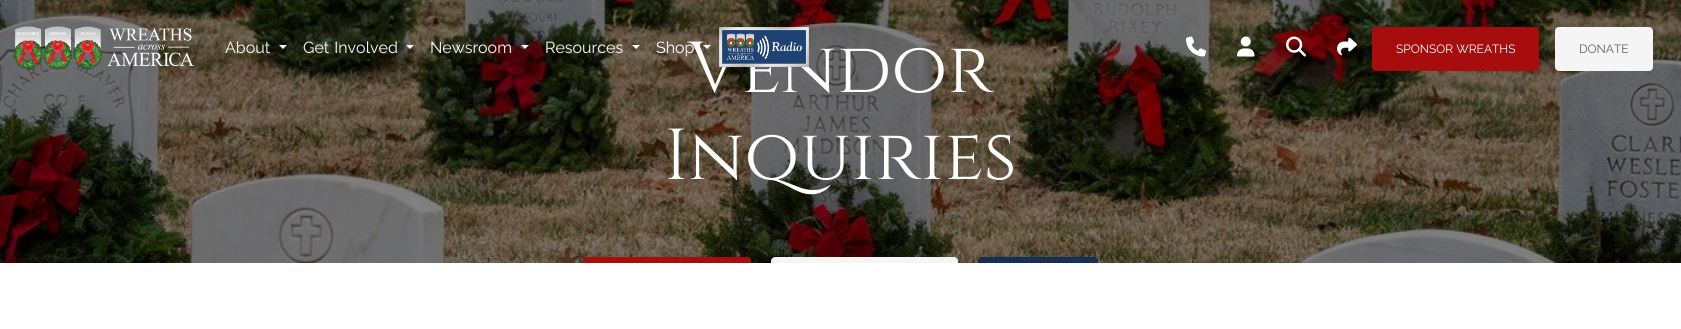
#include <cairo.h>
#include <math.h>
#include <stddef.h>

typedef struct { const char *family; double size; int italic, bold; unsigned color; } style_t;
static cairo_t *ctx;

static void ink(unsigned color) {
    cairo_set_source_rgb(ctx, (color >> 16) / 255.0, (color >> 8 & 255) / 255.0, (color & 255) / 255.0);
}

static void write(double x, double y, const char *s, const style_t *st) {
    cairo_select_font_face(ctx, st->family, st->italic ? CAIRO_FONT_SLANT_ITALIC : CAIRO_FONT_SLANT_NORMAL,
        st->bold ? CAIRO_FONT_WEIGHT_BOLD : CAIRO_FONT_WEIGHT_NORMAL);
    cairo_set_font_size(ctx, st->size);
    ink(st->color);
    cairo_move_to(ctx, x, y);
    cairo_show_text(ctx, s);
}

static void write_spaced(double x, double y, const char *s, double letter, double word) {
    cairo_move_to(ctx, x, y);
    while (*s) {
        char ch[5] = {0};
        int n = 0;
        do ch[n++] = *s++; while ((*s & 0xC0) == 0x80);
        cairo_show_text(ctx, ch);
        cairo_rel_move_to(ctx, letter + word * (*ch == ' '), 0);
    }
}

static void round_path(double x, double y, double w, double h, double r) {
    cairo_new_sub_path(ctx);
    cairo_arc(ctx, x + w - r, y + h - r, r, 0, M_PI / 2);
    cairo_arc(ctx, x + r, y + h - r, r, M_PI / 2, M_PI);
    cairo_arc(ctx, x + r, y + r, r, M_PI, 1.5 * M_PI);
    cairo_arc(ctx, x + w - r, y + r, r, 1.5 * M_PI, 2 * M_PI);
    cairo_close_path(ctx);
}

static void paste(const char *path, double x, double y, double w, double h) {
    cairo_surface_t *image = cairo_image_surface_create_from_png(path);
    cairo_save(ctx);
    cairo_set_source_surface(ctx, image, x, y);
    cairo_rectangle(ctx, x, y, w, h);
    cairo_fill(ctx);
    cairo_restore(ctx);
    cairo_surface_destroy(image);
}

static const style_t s1 = {"Raleway", 16, 0, 0, 0xffffff};
static const style_t s2 = {"Cinzel", 72, 0, 0, 0xffffff};
static const style_t s3 = {"Raleway", 12, 0, 0, 0xffffff};
static const style_t s4 = {"Raleway", 12, 0, 0, 0x616161};

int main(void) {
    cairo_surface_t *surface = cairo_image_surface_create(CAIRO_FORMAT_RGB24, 1681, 329);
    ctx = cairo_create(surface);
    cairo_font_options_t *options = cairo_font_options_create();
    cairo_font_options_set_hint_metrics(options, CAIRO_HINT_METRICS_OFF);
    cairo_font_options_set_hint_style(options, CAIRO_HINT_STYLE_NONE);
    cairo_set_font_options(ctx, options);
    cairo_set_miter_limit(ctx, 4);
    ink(0xffffff);
    cairo_paint(ctx);
    paste("pic7.png", 0, 0, 1681, 263);
    paste("pic1.png", 13, 26, 181, 44);
    write(225, 53, "About", &s1);
    cairo_new_path(ctx);
    cairo_move_to(ctx, 279, 45);
    cairo_line_to(ctx, 287, 45);
    cairo_line_to(ctx, 283, 49);
    cairo_close_path(ctx);
    cairo_fill(ctx);
    write_spaced(303, 53, "Get Involved", 0, 1);
    cairo_new_path(ctx);
    cairo_move_to(ctx, 406, 45);
    cairo_line_to(ctx, 414, 45);
    cairo_line_to(ctx, 410, 49);
    cairo_close_path(ctx);
    cairo_fill(ctx);
    write(430, 53, "Newsroom", &s1);
    cairo_new_path(ctx);
    cairo_move_to(ctx, 521, 45);
    cairo_line_to(ctx, 529, 45);
    cairo_line_to(ctx, 525, 49);
    cairo_close_path(ctx);
    cairo_fill(ctx);
    write(545, 53, "Resources", &s1);
    cairo_new_path(ctx);
    cairo_move_to(ctx, 632, 45);
    cairo_line_to(ctx, 640, 45);
    cairo_line_to(ctx, 636, 49);
    cairo_close_path(ctx);
    cairo_fill(ctx);
    write(688, 92, "Vendor", &s2);
    write(656, 53, "Shop", &s1);
    cairo_new_path(ctx);
    cairo_move_to(ctx, 703, 45);
    cairo_line_to(ctx, 711, 45);
    cairo_line_to(ctx, 707, 49);
    cairo_close_path(ctx);
    cairo_fill(ctx);
    paste("pic2.png", 719, 27, 90, 40);
    paste("pic3.png", 1186, 36, 20, 21);
    paste("pic4.png", 1237, 36, 18, 21);
    paste("pic5.png", 1286, 36, 20, 21);
    paste("pic6.png", 1337, 37, 20, 19);
    ink(0xa70d0d);
    round_path(1372, 27, 167, 44, 4);
    cairo_fill(ctx);
    write(1396, 53, "SPONSOR WREATHS", &s3);
    ink(0xf5f5f5);
    round_path(1555, 27, 98, 44, 4);
    cairo_fill(ctx);
    write(1579, 53, "DONATE", &s4);
    write(664, 179, "Inquiries", &s2);
    ink(0xa70d0d);
    cairo_new_path(ctx);
    cairo_move_to(ctx, 587, 257);
    cairo_line_to(ctx, 747, 257);
    cairo_curve_to(ctx, 749, 257, 751, 259, 751, 261);
    cairo_line_to(ctx, 751, 263);
    cairo_line_to(ctx, 583, 263);
    cairo_line_to(ctx, 583, 261);
    cairo_curve_to(ctx, 583, 259, 585, 257, 587, 257);
    cairo_close_path(ctx);
    cairo_fill(ctx);
    ink(0xf5f5f5);
    cairo_new_path(ctx);
    cairo_move_to(ctx, 775, 257);
    cairo_line_to(ctx, 954, 257);
    cairo_curve_to(ctx, 956, 257, 958, 259, 958, 261);
    cairo_line_to(ctx, 958, 263);
    cairo_line_to(ctx, 771, 263);
    cairo_line_to(ctx, 771, 261);
    cairo_curve_to(ctx, 771, 259, 773, 257, 775, 257);
    cairo_close_path(ctx);
    cairo_fill(ctx);
    ink(0x162f53);
    cairo_new_path(ctx);
    cairo_move_to(ctx, 982, 257);
    cairo_line_to(ctx, 1094, 257);
    cairo_curve_to(ctx, 1096, 257, 1098, 259, 1098, 261);
    cairo_line_to(ctx, 1098, 263);
    cairo_line_to(ctx, 978, 263);
    cairo_line_to(ctx, 978, 261);
    cairo_curve_to(ctx, 978, 259, 980, 257, 982, 257);
    cairo_close_path(ctx);
    cairo_fill(ctx);
    cairo_surface_write_to_png(surface, "screenshot.png");
    cairo_font_options_destroy(options);
    cairo_destroy(ctx);
    cairo_surface_destroy(surface);
    return 0;
}
